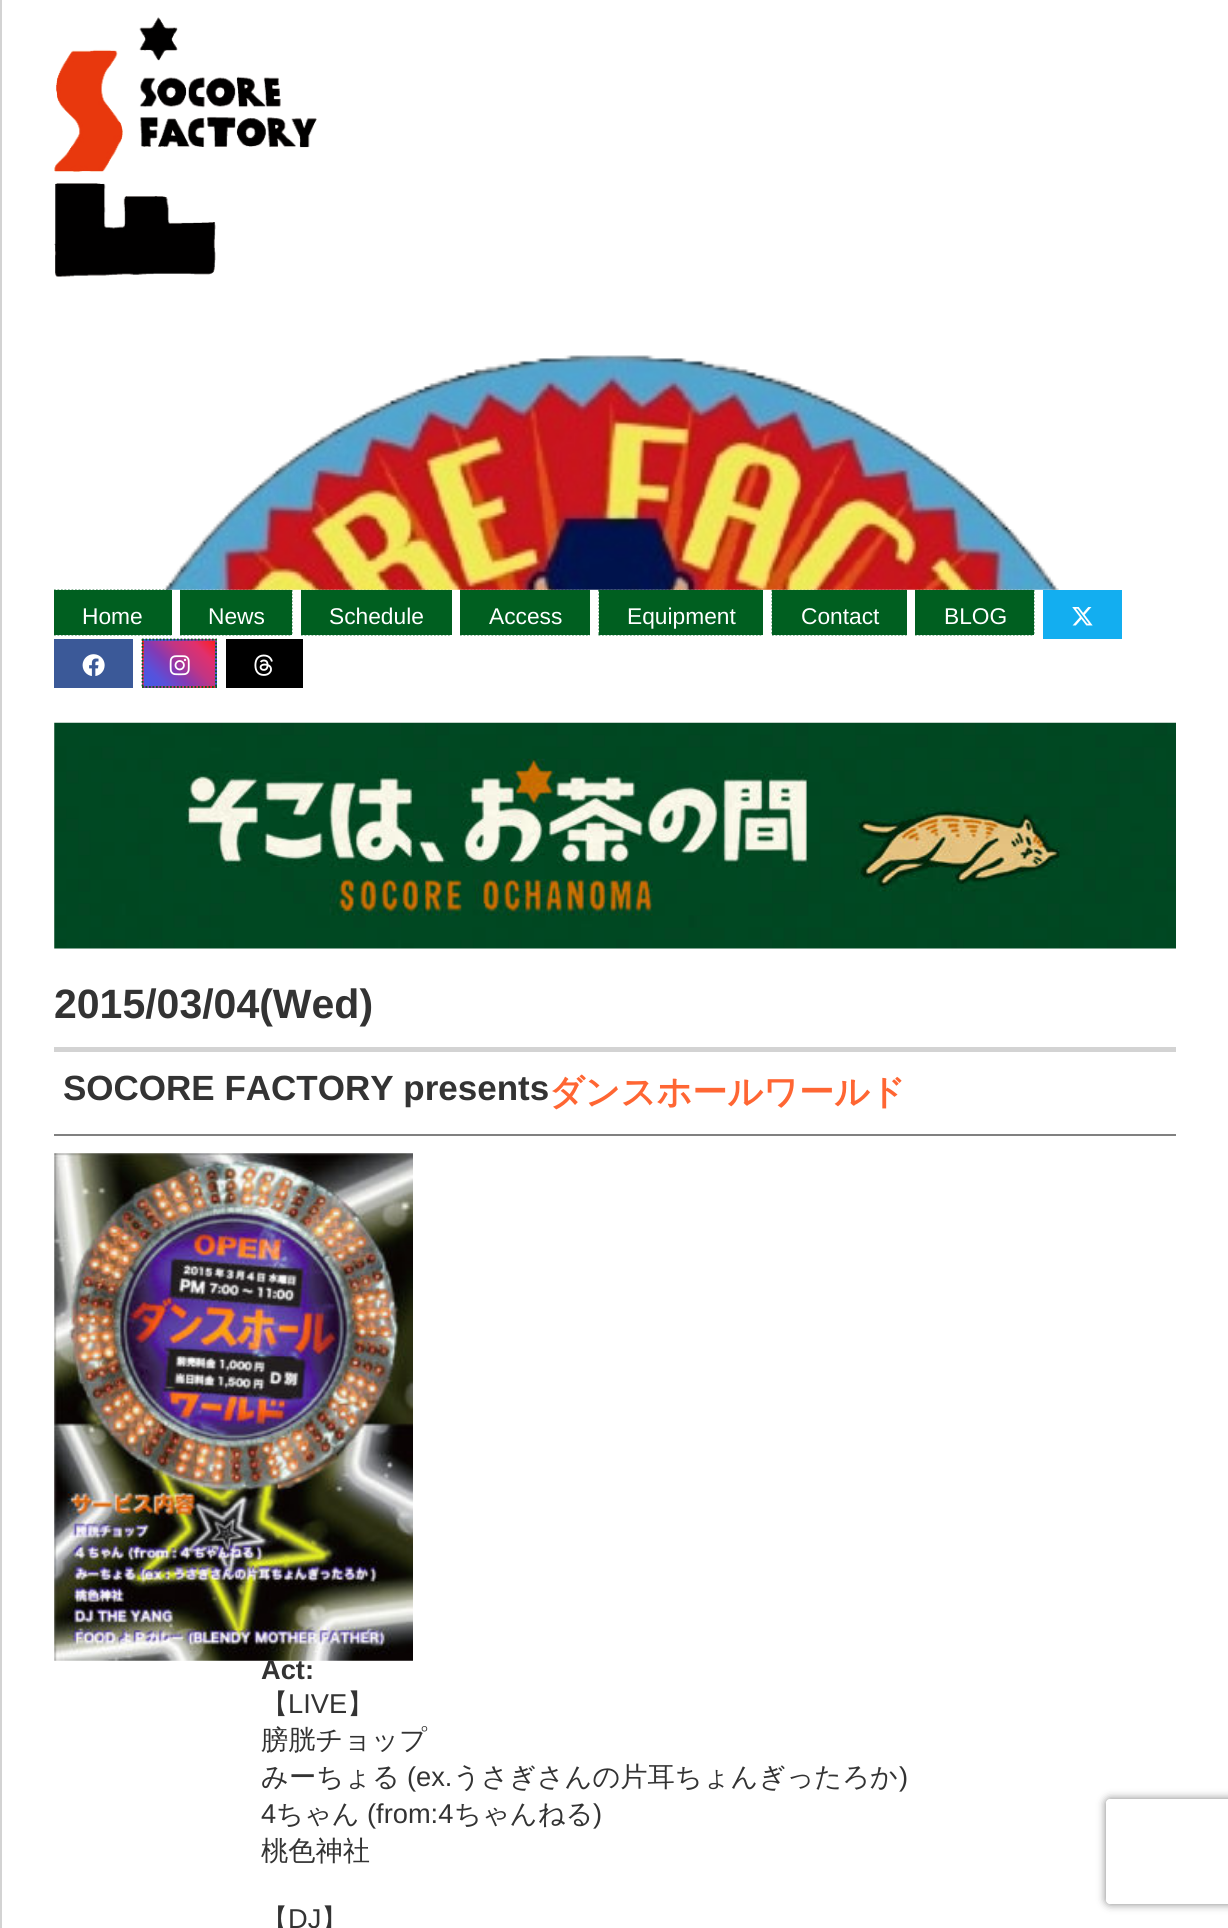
#include <cairo.h>
#include <math.h>
#include <stddef.h>

typedef struct { const char *family; double size; int italic, bold; unsigned color; } style_t;
static cairo_t *ctx;

static void ink(unsigned color) {
    cairo_set_source_rgb(ctx, (color >> 16) / 255.0, (color >> 8 & 255) / 255.0, (color & 255) / 255.0);
}

static void write(double x, double y, const char *s, const style_t *st) {
    cairo_select_font_face(ctx, st->family, st->italic ? CAIRO_FONT_SLANT_ITALIC : CAIRO_FONT_SLANT_NORMAL,
        st->bold ? CAIRO_FONT_WEIGHT_BOLD : CAIRO_FONT_WEIGHT_NORMAL);
    cairo_set_font_size(ctx, st->size);
    ink(st->color);
    cairo_move_to(ctx, x, y);
    cairo_show_text(ctx, s);
}

static void block(double x, double y, double w, double h, unsigned color) {
    ink(color);
    cairo_rectangle(ctx, x, y, w, h);
    cairo_fill(ctx);
}

static void round_path(double x, double y, double w, double h, double r) {
    cairo_new_sub_path(ctx);
    cairo_arc(ctx, x + w - r, y + h - r, r, 0, M_PI / 2);
    cairo_arc(ctx, x + r, y + h - r, r, M_PI / 2, M_PI);
    cairo_arc(ctx, x + r, y + r, r, M_PI, 1.5 * M_PI);
    cairo_arc(ctx, x + w - r, y + r, r, 1.5 * M_PI, 2 * M_PI);
    cairo_close_path(ctx);
}

static void blur_box(double x, double y, double w, double h, double r, double blur, double alpha) {
    cairo_push_group_with_content(ctx, CAIRO_CONTENT_ALPHA);
    cairo_set_operator(ctx, CAIRO_OPERATOR_SOURCE);
    for (int i = 15; i >= -15 && fmin(w, h) + blur * i / 3 > 0; i -= 2) {
        double e = blur * i / 6;
        cairo_set_source_rgba(ctx, 0, 0, 0, alpha * erfc((i - 1) / 8.5) / 2);
        round_path(x - e, y - e, w + 2 * e, h + 2 * e, fmax(0, fmin(r + e + blur * .6, fmin(w, h) / 2 + e)));
        cairo_fill(ctx);
    }
    cairo_pattern_t *soft = cairo_pop_group(ctx);
    cairo_mask(ctx, soft);
    cairo_pattern_destroy(soft);
}

static void paste(const char *path, double x, double y, double w, double h) {
    cairo_surface_t *image = cairo_image_surface_create_from_png(path);
    cairo_save(ctx);
    cairo_set_source_surface(ctx, image, x, y);
    cairo_rectangle(ctx, x, y, w, h);
    cairo_fill(ctx);
    cairo_restore(ctx);
    cairo_surface_destroy(image);
}

static const style_t s1 = {"Liberation Sans", 22.75, 0, 0, 0xffffff};
static const style_t s2 = {"Liberation Sans", 41, 0, 1, 0x333333};
static const style_t s3 = {"Liberation Sans", 35, 0, 1, 0x333333};
static const style_t s4 = {"WenQuanYi Zen Hei", 35, 0, 1, 0xff6633};
static const style_t s5 = {"Liberation Sans", 27.25, 0, 1, 0x333333};
static const style_t s6 = {"WenQuanYi Zen Hei Medium", 27.25, 0, 0, 0x333333};
static const style_t s7 = {"Liberation Sans", 27.25, 0, 0, 0x333333};

int main(void) {
    cairo_surface_t *surface = cairo_image_surface_create(CAIRO_FORMAT_RGB24, 1228, 1928);
    ctx = cairo_create(surface);
    cairo_font_options_t *options = cairo_font_options_create();
    cairo_font_options_set_hint_metrics(options, CAIRO_HINT_METRICS_OFF);
    cairo_font_options_set_hint_style(options, CAIRO_HINT_STYLE_NONE);
    cairo_set_font_options(ctx, options);
    cairo_set_miter_limit(ctx, 4);
    cairo_pattern_t *gradient;
    ink(0xffffff);
    cairo_paint(ctx);
    block(0, 0, 2, 1928, 0xd3d3d3);
    paste("pic1.png", 54, 17, 263, 260);
    block(54, 590, 118, 45, 0x005f20);
    cairo_new_path(ctx);
    cairo_move_to(ctx, 54, 590.5);
    cairo_line_to(ctx, 171.5, 590.5);
    cairo_set_line_width(ctx, 1.8);
    cairo_set_dash(ctx, (double[]){1.75, 1.75}, 2, 0);
    cairo_stroke(ctx);
    block(180, 590, 112, 45, 0x005f20);
    cairo_new_path(ctx);
    cairo_move_to(ctx, 180, 590.5);
    cairo_line_to(ctx, 292, 590.5);
    cairo_stroke(ctx);
    block(301, 590, 151, 45, 0x005f20);
    cairo_new_path(ctx);
    cairo_move_to(ctx, 301, 590.5);
    cairo_line_to(ctx, 451.5, 590.5);
    cairo_stroke(ctx);
    block(460, 590, 130, 45, 0x005f20);
    cairo_new_path(ctx);
    cairo_move_to(ctx, 460, 590.5);
    cairo_line_to(ctx, 590, 590.5);
    cairo_stroke(ctx);
    block(599, 590, 164, 45, 0x005f20);
    cairo_new_path(ctx);
    cairo_move_to(ctx, 598.5, 590.5);
    cairo_line_to(ctx, 763, 590.5);
    cairo_stroke(ctx);
    block(772, 590, 135, 45, 0x005f20);
    cairo_new_path(ctx);
    cairo_move_to(ctx, 772, 590.5);
    cairo_line_to(ctx, 906.5, 590.5);
    cairo_stroke(ctx);
    block(915, 590, 119, 45, 0x005f20);
    cairo_new_path(ctx);
    cairo_move_to(ctx, 915, 590.5);
    cairo_line_to(ctx, 1034, 590.5);
    cairo_stroke(ctx);
    paste("pic2.png", 163, 355, 896, 235);
    cairo_new_path(ctx);
    cairo_move_to(ctx, 54, 634.5);
    cairo_line_to(ctx, 171.5, 634.5);
    cairo_stroke(ctx);
    write(82, 624, "Home", &s1);
    cairo_new_path(ctx);
    cairo_move_to(ctx, 291.5, 590);
    cairo_line_to(ctx, 291.5, 635);
    ink(0x005f20);
    cairo_stroke(ctx);
    cairo_new_path(ctx);
    cairo_move_to(ctx, 180, 634.5);
    cairo_line_to(ctx, 292, 634.5);
    cairo_stroke(ctx);
    write(208, 624, "News", &s1);
    cairo_new_path(ctx);
    cairo_move_to(ctx, 301, 634.5);
    cairo_line_to(ctx, 451.5, 634.5);
    ink(0x005f20);
    cairo_stroke(ctx);
    write(329, 624, "Schedule", &s1);
    cairo_new_path(ctx);
    cairo_move_to(ctx, 460, 634.5);
    cairo_line_to(ctx, 590, 634.5);
    ink(0x005f20);
    cairo_stroke(ctx);
    write(489, 624, "Access", &s1);
    cairo_new_path(ctx);
    cairo_move_to(ctx, 598.5, 634.5);
    cairo_line_to(ctx, 763, 634.5);
    ink(0x005f20);
    cairo_stroke(ctx);
    cairo_new_path(ctx);
    cairo_move_to(ctx, 599.5, 590);
    cairo_line_to(ctx, 599.5, 635);
    cairo_stroke(ctx);
    write(627, 624, "Equipment", &s1);
    cairo_new_path(ctx);
    cairo_move_to(ctx, 772, 634.5);
    cairo_line_to(ctx, 906.5, 634.5);
    ink(0x005f20);
    cairo_stroke(ctx);
    cairo_new_path(ctx);
    cairo_move_to(ctx, 772.5, 590);
    cairo_line_to(ctx, 772.5, 635);
    cairo_stroke(ctx);
    write(801, 624, "Contact", &s1);
    cairo_new_path(ctx);
    cairo_move_to(ctx, 1033.5, 590);
    cairo_line_to(ctx, 1033.5, 635);
    ink(0x005f20);
    cairo_stroke(ctx);
    cairo_new_path(ctx);
    cairo_move_to(ctx, 915, 634.5);
    cairo_line_to(ctx, 1034, 634.5);
    cairo_stroke(ctx);
    write(944, 624, "BLOG", &s1);
    block(1043, 590, 79, 49, 0x13aef0);
    paste("pic3.png", 1072, 607, 21, 19);
    block(54, 639, 79, 49, 0x3b5998);
    paste("pic4.png", 82, 654, 23, 22);
    gradient = cairo_pattern_create_linear(78, 647, 137, 588);
    cairo_pattern_add_color_stop_rgba(gradient, 0, 0.251, 0.365, 0.902, 1);
    cairo_pattern_add_color_stop_rgba(gradient, 0.2, 0.345, 0.318, 0.859, 1);
    cairo_pattern_add_color_stop_rgba(gradient, 0.4, 0.514, 0.227, 0.706, 1);
    cairo_pattern_add_color_stop_rgba(gradient, 0.6, 0.757, 0.208, 0.518, 1);
    cairo_pattern_add_color_stop_rgba(gradient, 0.8, 0.882, 0.188, 0.424, 1);
    cairo_pattern_add_color_stop_rgba(gradient, 1, 0.992, 0.114, 0.114, 1);
    cairo_set_source(ctx, gradient);
    cairo_pattern_destroy(gradient);
    cairo_rectangle(ctx, 142, 639, 2, 2);
    cairo_fill(ctx);
    gradient = cairo_pattern_create_linear(150, 647, 209, 588);
    cairo_pattern_add_color_stop_rgba(gradient, 0, 0.251, 0.365, 0.902, 1);
    cairo_pattern_add_color_stop_rgba(gradient, 0.2, 0.345, 0.318, 0.859, 1);
    cairo_pattern_add_color_stop_rgba(gradient, 0.4, 0.514, 0.227, 0.706, 1);
    cairo_pattern_add_color_stop_rgba(gradient, 0.6, 0.757, 0.208, 0.518, 1);
    cairo_pattern_add_color_stop_rgba(gradient, 0.8, 0.882, 0.188, 0.424, 1);
    cairo_pattern_add_color_stop_rgba(gradient, 1, 0.992, 0.114, 0.114, 1);
    cairo_set_source(ctx, gradient);
    cairo_pattern_destroy(gradient);
    cairo_rectangle(ctx, 144, 639, 71, 2);
    cairo_fill(ctx);
    gradient = cairo_pattern_create_linear(78, 693, 137, 634);
    cairo_pattern_add_color_stop_rgba(gradient, 0, 0.251, 0.365, 0.902, 1);
    cairo_pattern_add_color_stop_rgba(gradient, 0.2, 0.345, 0.318, 0.859, 1);
    cairo_pattern_add_color_stop_rgba(gradient, 0.4, 0.514, 0.227, 0.706, 1);
    cairo_pattern_add_color_stop_rgba(gradient, 0.6, 0.757, 0.208, 0.518, 1);
    cairo_pattern_add_color_stop_rgba(gradient, 0.8, 0.882, 0.188, 0.424, 1);
    cairo_pattern_add_color_stop_rgba(gradient, 1, 0.992, 0.114, 0.114, 1);
    cairo_set_source(ctx, gradient);
    cairo_pattern_destroy(gradient);
    cairo_rectangle(ctx, 142, 641, 2, 45);
    cairo_fill(ctx);
    gradient = cairo_pattern_create_linear(150, 693, 209, 634);
    cairo_pattern_add_color_stop_rgba(gradient, 0, 0.251, 0.365, 0.902, 1);
    cairo_pattern_add_color_stop_rgba(gradient, 0.2, 0.345, 0.318, 0.859, 1);
    cairo_pattern_add_color_stop_rgba(gradient, 0.4, 0.514, 0.227, 0.706, 1);
    cairo_pattern_add_color_stop_rgba(gradient, 0.6, 0.757, 0.208, 0.518, 1);
    cairo_pattern_add_color_stop_rgba(gradient, 0.8, 0.882, 0.188, 0.424, 1);
    cairo_pattern_add_color_stop_rgba(gradient, 1, 0.992, 0.114, 0.114, 1);
    cairo_set_source(ctx, gradient);
    cairo_pattern_destroy(gradient);
    cairo_rectangle(ctx, 144, 641, 71, 45);
    cairo_fill(ctx);
    gradient = cairo_pattern_create_linear(222, 693, 280, 634);
    cairo_pattern_add_color_stop_rgba(gradient, 0, 0.251, 0.365, 0.902, 1);
    cairo_pattern_add_color_stop_rgba(gradient, 0.2, 0.345, 0.318, 0.859, 1);
    cairo_pattern_add_color_stop_rgba(gradient, 0.4, 0.514, 0.227, 0.706, 1);
    cairo_pattern_add_color_stop_rgba(gradient, 0.6, 0.757, 0.208, 0.518, 1);
    cairo_pattern_add_color_stop_rgba(gradient, 0.8, 0.882, 0.188, 0.424, 1);
    cairo_pattern_add_color_stop_rgba(gradient, 1, 0.992, 0.114, 0.114, 1);
    cairo_set_source(ctx, gradient);
    cairo_pattern_destroy(gradient);
    cairo_rectangle(ctx, 215, 641, 2, 45);
    cairo_fill(ctx);
    gradient = cairo_pattern_create_linear(78, 738, 137, 679);
    cairo_pattern_add_color_stop_rgba(gradient, 0, 0.251, 0.365, 0.902, 1);
    cairo_pattern_add_color_stop_rgba(gradient, 0.2, 0.345, 0.318, 0.859, 1);
    cairo_pattern_add_color_stop_rgba(gradient, 0.4, 0.514, 0.227, 0.706, 1);
    cairo_pattern_add_color_stop_rgba(gradient, 0.6, 0.757, 0.208, 0.518, 1);
    cairo_pattern_add_color_stop_rgba(gradient, 0.8, 0.882, 0.188, 0.424, 1);
    cairo_pattern_add_color_stop_rgba(gradient, 1, 0.992, 0.114, 0.114, 1);
    cairo_set_source(ctx, gradient);
    cairo_pattern_destroy(gradient);
    cairo_rectangle(ctx, 142, 686, 2, 2);
    cairo_fill(ctx);
    gradient = cairo_pattern_create_linear(150, 738, 209, 679);
    cairo_pattern_add_color_stop_rgba(gradient, 0, 0.251, 0.365, 0.902, 1);
    cairo_pattern_add_color_stop_rgba(gradient, 0.2, 0.345, 0.318, 0.859, 1);
    cairo_pattern_add_color_stop_rgba(gradient, 0.4, 0.514, 0.227, 0.706, 1);
    cairo_pattern_add_color_stop_rgba(gradient, 0.6, 0.757, 0.208, 0.518, 1);
    cairo_pattern_add_color_stop_rgba(gradient, 0.8, 0.882, 0.188, 0.424, 1);
    cairo_pattern_add_color_stop_rgba(gradient, 1, 0.992, 0.114, 0.114, 1);
    cairo_set_source(ctx, gradient);
    cairo_pattern_destroy(gradient);
    cairo_rectangle(ctx, 144, 686, 71, 2);
    cairo_fill(ctx);
    gradient = cairo_pattern_create_linear(222, 738, 280, 679);
    cairo_pattern_add_color_stop_rgba(gradient, 0, 0.251, 0.365, 0.902, 1);
    cairo_pattern_add_color_stop_rgba(gradient, 0.2, 0.345, 0.318, 0.859, 1);
    cairo_pattern_add_color_stop_rgba(gradient, 0.4, 0.514, 0.227, 0.706, 1);
    cairo_pattern_add_color_stop_rgba(gradient, 0.6, 0.757, 0.208, 0.518, 1);
    cairo_pattern_add_color_stop_rgba(gradient, 0.8, 0.882, 0.188, 0.424, 1);
    cairo_pattern_add_color_stop_rgba(gradient, 1, 0.992, 0.114, 0.114, 1);
    cairo_set_source(ctx, gradient);
    cairo_pattern_destroy(gradient);
    cairo_rectangle(ctx, 215, 686, 2, 2);
    cairo_fill(ctx);
    cairo_new_path(ctx);
    cairo_move_to(ctx, 142, 639.5);
    cairo_line_to(ctx, 217, 639.5);
    ink(0x005f20);
    cairo_stroke(ctx);
    cairo_new_path(ctx);
    cairo_move_to(ctx, 216, 639);
    cairo_line_to(ctx, 216, 688);
    cairo_stroke(ctx);
    cairo_new_path(ctx);
    cairo_move_to(ctx, 142, 687);
    cairo_line_to(ctx, 217, 687);
    cairo_stroke(ctx);
    cairo_new_path(ctx);
    cairo_move_to(ctx, 142.5, 639);
    cairo_line_to(ctx, 142.5, 688);
    cairo_stroke(ctx);
    paste("pic5.png", 169, 655, 21, 21);
    block(226, 639, 77, 49, 0x000000);
    paste("pic6.png", 254, 654, 19, 22);
    paste("pic7.png", 54, 722, 1122, 227);
    write(54, 1018, "2015/03/04(Wed)", &s2);
    block(54, 1047, 1122, 5, 0xd3d3d3);
    block(54, 1134, 1122, 2, 0x808080);
    write(63, 1100, "SOCORE FACTORY presents", &s3);
    write(549, 1104, "ダンスホールワールド", &s4);
    paste("pic8.png", 54, 1153, 359, 508);
    write(261, 1679, "Act:", &s5);
    write(261, 1713, "【", &s6);
    write(288, 1713, "LIVE", &s7);
    write(347, 1713, "】", &s6);
    write(261, 1749, "膀胱チョップ", &s6);
    write(261, 1786, "みーちょる", &s6);
    write(407, 1786, "(ex.", &s7);
    write(453, 1786, "うさぎさんの片耳ちょんぎったろか", &s6);
    write(899, 1786, ")", &s7);
    write(261, 1823, "4", &s7);
    write(276, 1823, "ちゃん", &s6);
    write(367, 1823, "(from:4", &s7);
    write(454, 1823, "ちゃんねる", &s6);
    write(593, 1823, ")", &s7);
    write(261, 1860, "桃色神社", &s6);
    write(261, 1928, "【", &s6);
    write(288, 1928, "DJ", &s7);
    write(321, 1928, "】", &s6);
    cairo_save(ctx);
    cairo_set_fill_rule(ctx, CAIRO_FILL_RULE_EVEN_ODD);
    cairo_new_path(ctx);
    cairo_move_to(ctx, 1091, 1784);
    cairo_line_to(ctx, 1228, 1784);
    cairo_line_to(ctx, 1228, 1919);
    cairo_line_to(ctx, 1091, 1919);
    cairo_close_path(ctx);
    cairo_move_to(ctx, 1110, 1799);
    cairo_line_to(ctx, 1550, 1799);
    cairo_curve_to(ctx, 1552, 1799, 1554, 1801, 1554, 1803);
    cairo_line_to(ctx, 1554, 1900);
    cairo_curve_to(ctx, 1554, 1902, 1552, 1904, 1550, 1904);
    cairo_line_to(ctx, 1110, 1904);
    cairo_curve_to(ctx, 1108, 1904, 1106, 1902, 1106, 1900);
    cairo_line_to(ctx, 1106, 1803);
    cairo_curve_to(ctx, 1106, 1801, 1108, 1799, 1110, 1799);
    cairo_close_path(ctx);
    cairo_clip(ctx);
    ink(0x808080);
    blur_box(1106, 1799, 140, 105, 4, 4.5, 1);
    cairo_restore(ctx);
    cairo_surface_write_to_png(surface, "screenshot.png");
    cairo_font_options_destroy(options);
    cairo_destroy(ctx);
    cairo_surface_destroy(surface);
    return 0;
}
